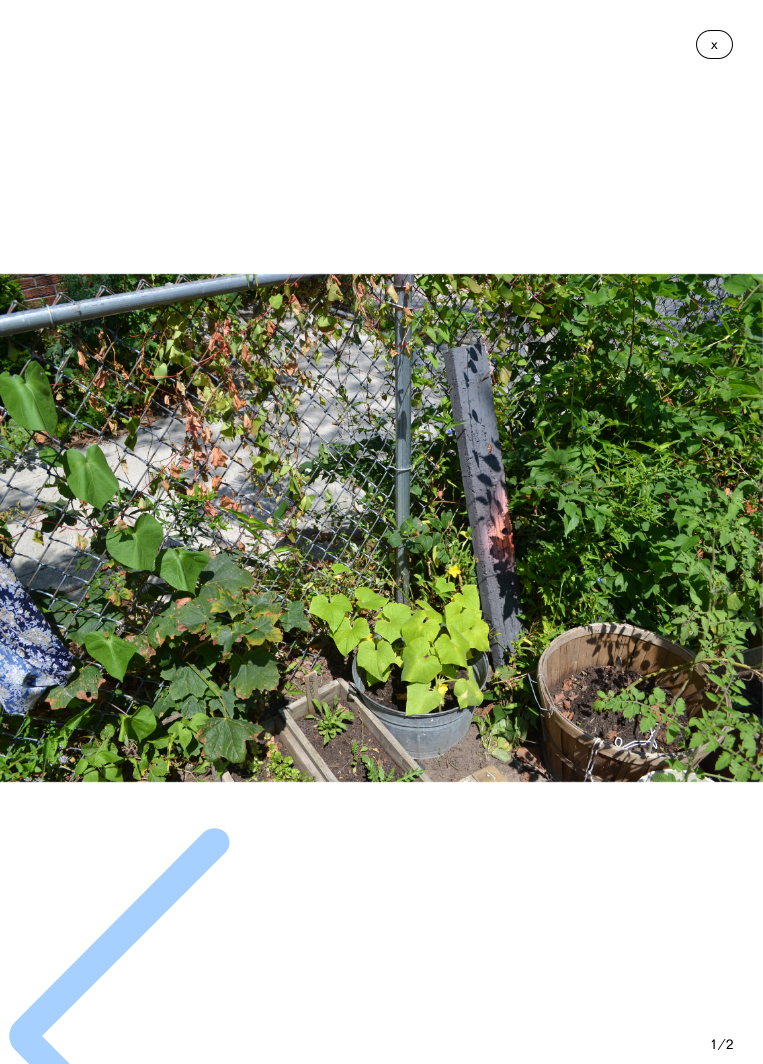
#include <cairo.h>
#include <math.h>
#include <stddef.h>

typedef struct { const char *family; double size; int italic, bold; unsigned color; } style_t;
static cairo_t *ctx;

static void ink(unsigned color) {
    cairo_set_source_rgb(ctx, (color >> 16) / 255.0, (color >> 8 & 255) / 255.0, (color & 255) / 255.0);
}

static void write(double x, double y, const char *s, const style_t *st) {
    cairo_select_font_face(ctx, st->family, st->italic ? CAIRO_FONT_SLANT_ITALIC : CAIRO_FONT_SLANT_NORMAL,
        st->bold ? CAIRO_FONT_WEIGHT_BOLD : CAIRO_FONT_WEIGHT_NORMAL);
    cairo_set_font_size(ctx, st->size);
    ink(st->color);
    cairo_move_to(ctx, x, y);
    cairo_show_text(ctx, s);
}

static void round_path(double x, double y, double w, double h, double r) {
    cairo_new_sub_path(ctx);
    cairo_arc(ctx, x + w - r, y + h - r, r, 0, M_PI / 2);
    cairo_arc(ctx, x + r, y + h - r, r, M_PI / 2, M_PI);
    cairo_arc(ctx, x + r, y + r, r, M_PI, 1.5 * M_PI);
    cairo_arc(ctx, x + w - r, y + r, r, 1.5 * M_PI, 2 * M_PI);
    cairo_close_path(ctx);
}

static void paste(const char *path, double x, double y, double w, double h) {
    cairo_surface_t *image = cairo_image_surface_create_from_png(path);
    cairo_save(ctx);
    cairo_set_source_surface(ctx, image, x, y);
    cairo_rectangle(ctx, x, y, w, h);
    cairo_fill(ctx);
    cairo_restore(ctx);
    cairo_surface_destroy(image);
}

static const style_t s1 = {"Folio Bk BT", 14, 0, 0, 0x000000};

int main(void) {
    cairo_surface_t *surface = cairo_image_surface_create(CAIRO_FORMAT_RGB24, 763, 1064);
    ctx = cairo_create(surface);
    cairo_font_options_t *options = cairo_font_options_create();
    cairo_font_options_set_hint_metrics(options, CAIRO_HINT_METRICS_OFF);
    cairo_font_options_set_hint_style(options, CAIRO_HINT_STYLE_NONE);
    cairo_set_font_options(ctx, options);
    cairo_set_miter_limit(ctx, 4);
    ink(0xffffff);
    cairo_paint(ctx);
    round_path(696.5, 30.5, 36, 28, 14);
    ink(0x000000);
    cairo_set_line_width(ctx, 1);
    cairo_stroke(ctx);
    write(711, 49, "x", &s1);
    ink(0xa6d0ff);
    cairo_new_path(ctx);
    cairo_move_to(ctx, 225, 832);
    cairo_curve_to(ctx, 231, 838, 231, 847, 225, 853);
    cairo_line_to(ctx, 42, 1036);
    cairo_line_to(ctx, 225, 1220);
    cairo_curve_to(ctx, 231, 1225, 231, 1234, 225, 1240);
    cairo_curve_to(ctx, 219, 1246, 210, 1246, 204, 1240);
    cairo_line_to(ctx, 16, 1051);
    cairo_curve_to(ctx, 7, 1043, 7, 1029, 16, 1021);
    cairo_line_to(ctx, 204, 832);
    cairo_curve_to(ctx, 210, 827, 219, 827, 225, 832);
    cairo_close_path(ctx);
    cairo_fill(ctx);
    paste("pic1.png", 0, 273, 763, 510);
    write(710, 1049, "1/2", &s1);
    cairo_surface_write_to_png(surface, "screenshot.png");
    cairo_font_options_destroy(options);
    cairo_destroy(ctx);
    cairo_surface_destroy(surface);
    return 0;
}
